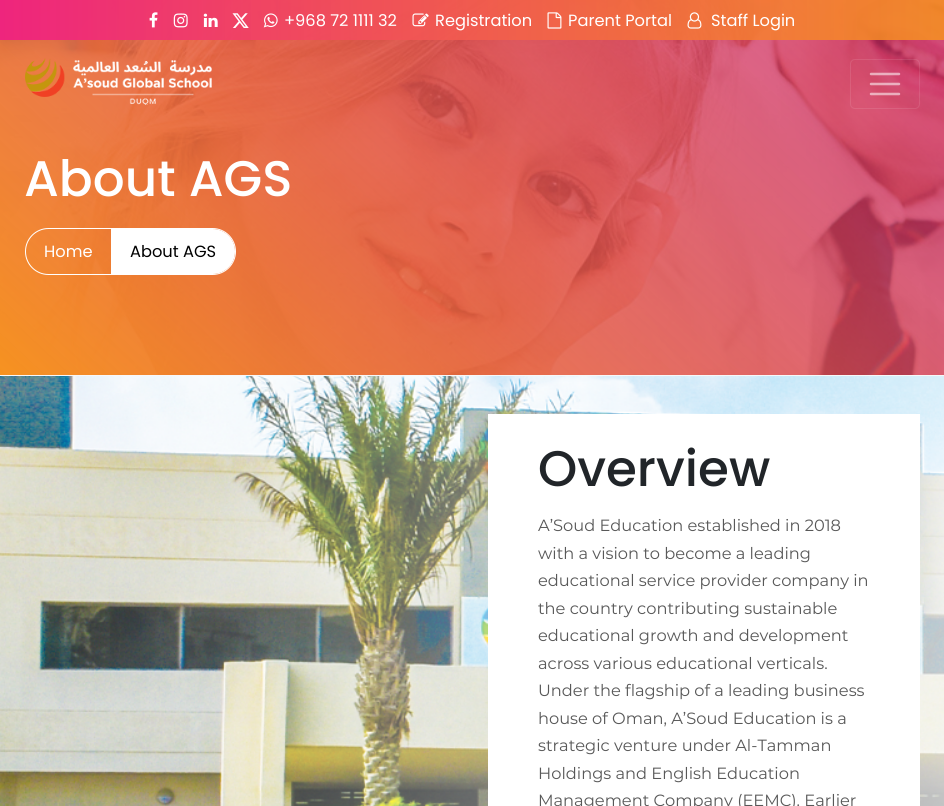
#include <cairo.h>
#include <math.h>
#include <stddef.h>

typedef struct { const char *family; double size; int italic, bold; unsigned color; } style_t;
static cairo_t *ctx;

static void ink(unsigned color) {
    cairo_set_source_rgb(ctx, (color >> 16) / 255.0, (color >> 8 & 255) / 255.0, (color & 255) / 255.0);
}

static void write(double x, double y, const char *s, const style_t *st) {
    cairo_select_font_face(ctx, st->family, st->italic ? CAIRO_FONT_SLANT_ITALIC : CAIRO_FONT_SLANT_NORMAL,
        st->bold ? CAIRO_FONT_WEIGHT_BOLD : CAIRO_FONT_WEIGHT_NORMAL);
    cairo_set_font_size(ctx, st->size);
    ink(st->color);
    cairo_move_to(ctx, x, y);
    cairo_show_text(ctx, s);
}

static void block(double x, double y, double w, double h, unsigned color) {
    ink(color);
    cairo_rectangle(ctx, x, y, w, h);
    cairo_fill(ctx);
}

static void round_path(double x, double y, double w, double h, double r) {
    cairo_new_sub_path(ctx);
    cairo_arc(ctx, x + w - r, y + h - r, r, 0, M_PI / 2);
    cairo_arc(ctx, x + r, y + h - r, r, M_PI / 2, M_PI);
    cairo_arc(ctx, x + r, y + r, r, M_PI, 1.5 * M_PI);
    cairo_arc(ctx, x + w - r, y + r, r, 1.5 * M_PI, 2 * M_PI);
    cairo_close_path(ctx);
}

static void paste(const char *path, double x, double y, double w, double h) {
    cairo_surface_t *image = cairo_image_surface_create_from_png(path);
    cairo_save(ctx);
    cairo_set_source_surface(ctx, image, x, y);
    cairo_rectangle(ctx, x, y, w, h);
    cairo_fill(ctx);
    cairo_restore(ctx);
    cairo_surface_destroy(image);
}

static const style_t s1 = {"Poppins", 16.25, 0, 0, 0xffffff};
static const style_t s2 = {"Poppins Medium", 50, 0, 0, 0xffffff};
static const style_t s3 = {"Poppins", 16.25, 0, 0, 0x000000};
static const style_t s4 = {"Poppins Medium", 50, 0, 0, 0x212529};
static const style_t s5 = {"Montserrat", 16.25, 0, 0, 0x585858};

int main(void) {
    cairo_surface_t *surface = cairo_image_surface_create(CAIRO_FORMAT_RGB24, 944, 806);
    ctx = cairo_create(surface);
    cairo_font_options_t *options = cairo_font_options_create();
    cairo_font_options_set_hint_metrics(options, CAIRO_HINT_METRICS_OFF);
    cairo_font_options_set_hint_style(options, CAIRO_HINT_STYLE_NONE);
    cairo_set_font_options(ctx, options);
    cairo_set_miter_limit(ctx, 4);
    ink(0xffffff);
    cairo_paint(ctx);
    paste("pic1.png", 0, 0, 944, 375);
    paste("pic2.png", 149, 12, 9, 16);
    paste("pic3.png", 173, 13, 15, 15);
    paste("pic4.png", 203, 13, 15, 14);
    paste("pic5.png", 232, 13, 17, 15);
    paste("pic6.png", 263, 13, 15, 15);
    write(284, 26, "+968 72 1111 32", &s1);
    paste("pic7.png", 412, 13, 17, 14);
    write(435, 26, "Registration", &s1);
    paste("pic8.png", 547, 12, 15, 17);
    write(568, 26, "Parent Portal", &s1);
    paste("pic9.png", 687, 12, 15, 17);
    write(711, 26, "Staff Login", &s1);
    paste("pic10.png", 25, 58, 187, 47);
    round_path(850.5, 59.5, 69, 49, 4.5);
    cairo_set_source_rgba(ctx, 1, 1, 1, 0.1);
    cairo_set_line_width(ctx, 1);
    cairo_stroke(ctx);
    cairo_new_path(ctx);
    cairo_move_to(ctx, 871, 74);
    cairo_line_to(ctx, 899, 74);
    cairo_move_to(ctx, 871, 84);
    cairo_line_to(ctx, 899, 84);
    cairo_move_to(ctx, 871, 94);
    cairo_line_to(ctx, 899, 94);
    cairo_set_source_rgba(ctx, 1, 1, 1, 0.55);
    cairo_set_line_width(ctx, 2.5);
    cairo_set_line_cap(ctx, CAIRO_LINE_CAP_ROUND);
    cairo_stroke(ctx);
    write(24, 196, "About AGS", &s2);
    round_path(25.5, 228.5, 210, 46, 23);
    cairo_set_line_width(ctx, 1);
    cairo_set_line_cap(ctx, CAIRO_LINE_CAP_BUTT);
    cairo_stroke(ctx);
    write(44, 257, "Home", &s1);
    cairo_new_path(ctx);
    cairo_move_to(ctx, 111, 229);
    cairo_line_to(ctx, 212.5, 229);
    cairo_curve_to(ctx, 225, 229, 235, 239, 235, 251.5);
    cairo_curve_to(ctx, 235, 264, 225, 274, 212.5, 274);
    cairo_line_to(ctx, 111, 274);
    cairo_close_path(ctx);
    cairo_fill(ctx);
    write(130, 257, "About AGS", &s3);
    paste("pic11.png", 0, 376, 944, 430);
    block(0, 375, 944, 1, 0xf8f8f8);
    block(488, 414, 432, 392, 0xffffff);
    write(538, 486, "Overview", &s4);
    write(538, 531, "A’Soud Education established in 2018", &s5);
    write(538, 559, "with a vision to become a leading", &s5);
    write(538, 586, "educational service provider company in", &s5);
    write(538, 614, "the country contributing sustainable", &s5);
    write(538, 641, "educational growth and development", &s5);
    write(538, 669, "across various educational verticals.", &s5);
    write(538, 696, "Under the flagship of a leading business", &s5);
    write(538, 724, "house of Oman, A’Soud Education is a", &s5);
    write(538, 751, "strategic venture under Al-Tamman", &s5);
    write(538, 779, "Holdings and English Education", &s5);
    write(538, 806, "Management Company (EEMC). Earlier", &s5);
    cairo_surface_write_to_png(surface, "screenshot.png");
    cairo_font_options_destroy(options);
    cairo_destroy(ctx);
    cairo_surface_destroy(surface);
    return 0;
}
